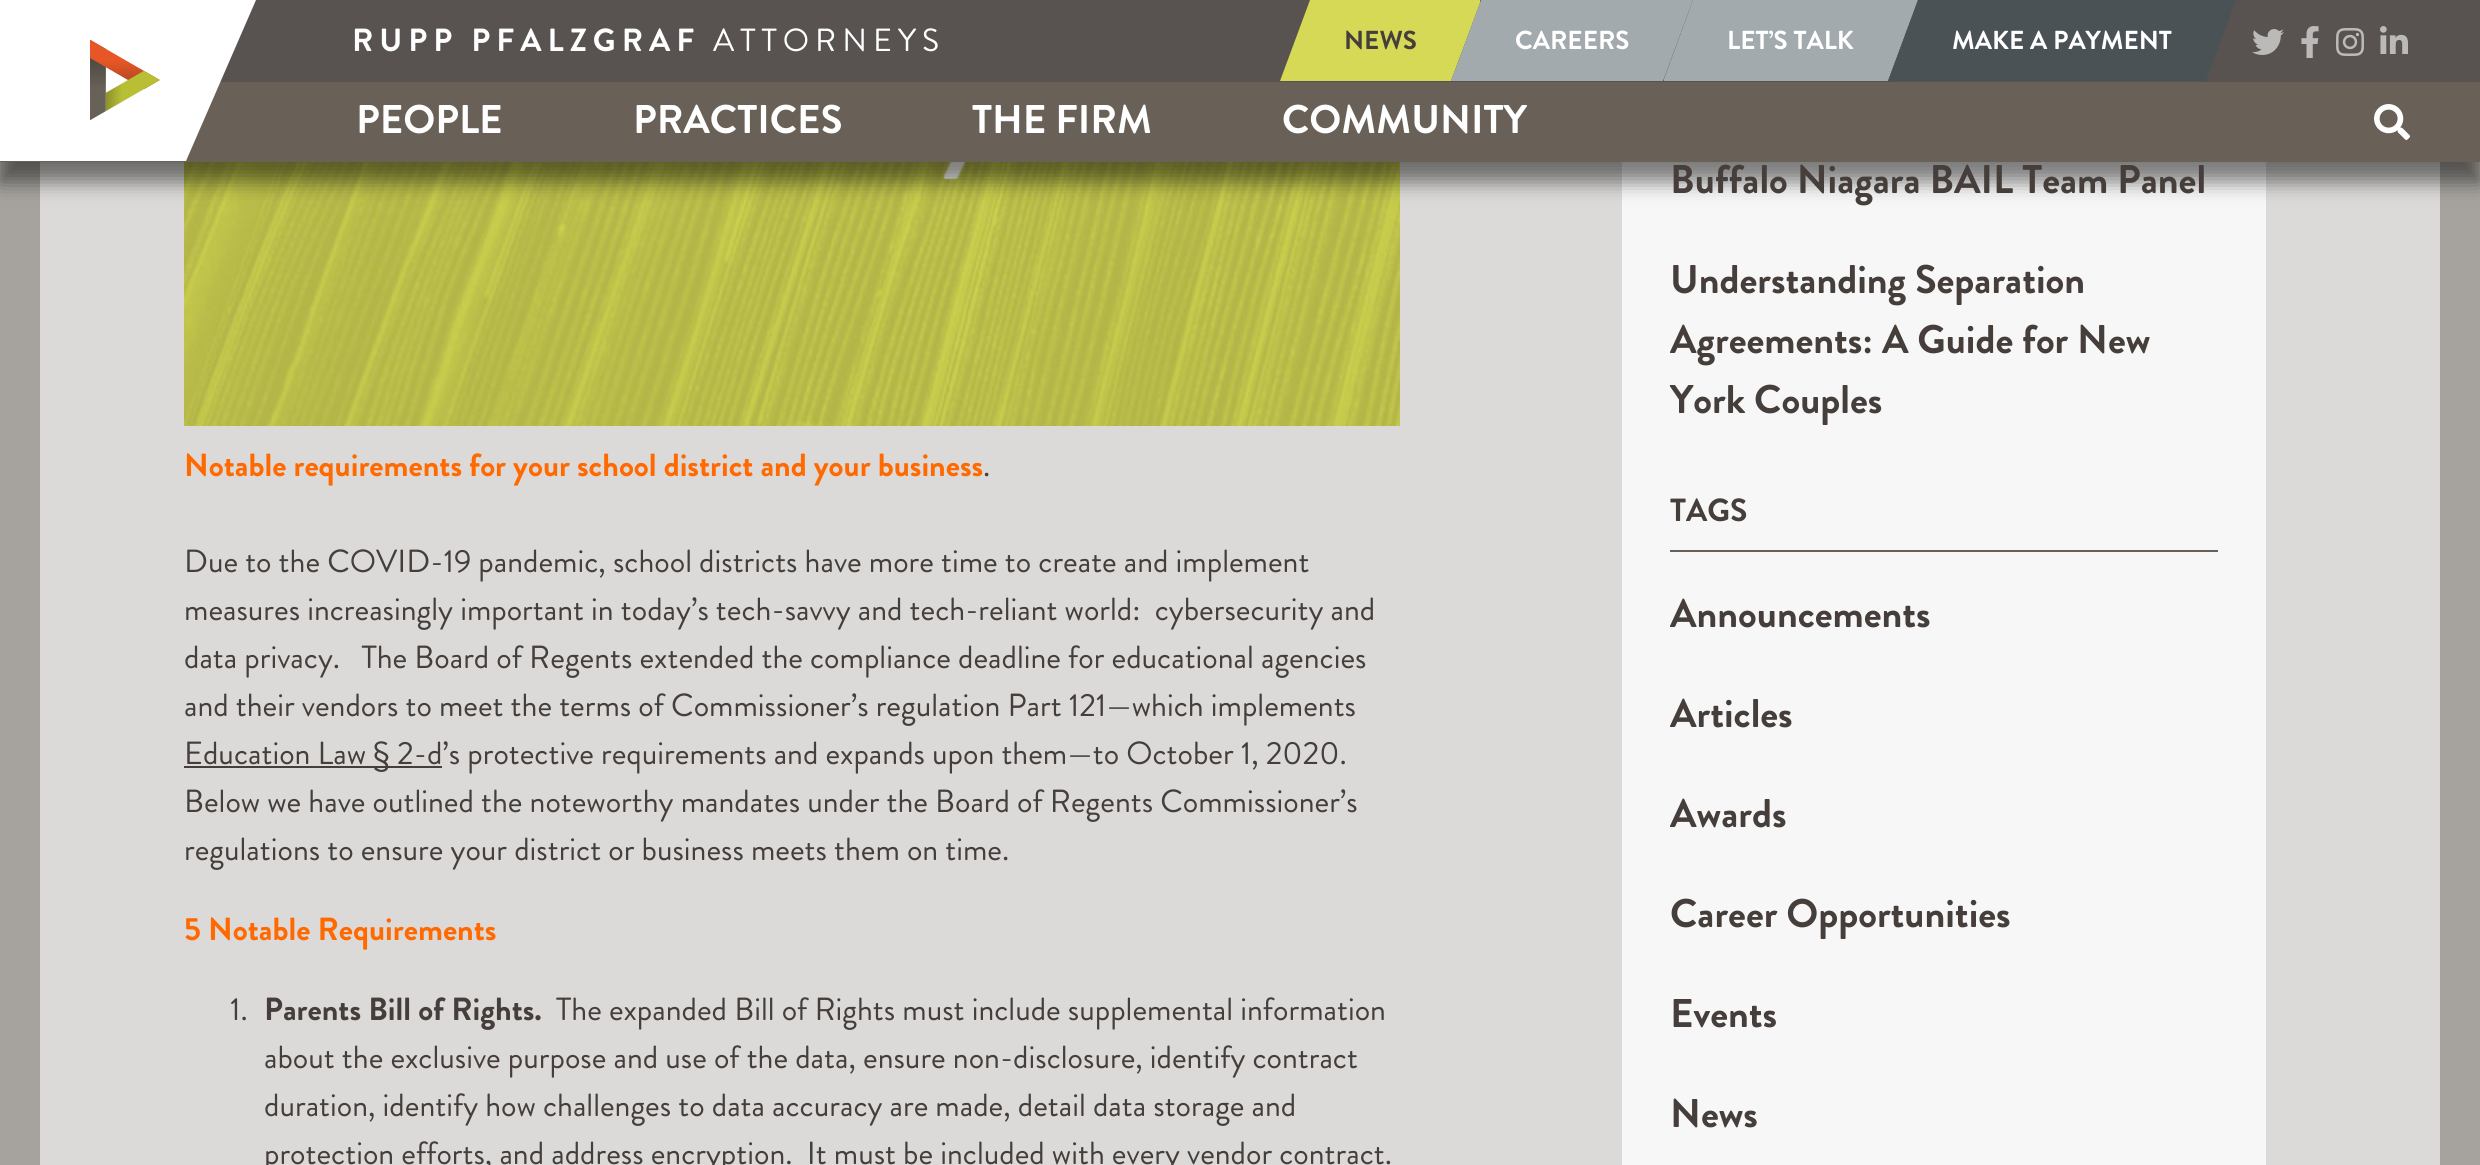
#include <cairo.h>
#include <math.h>
#include <stddef.h>

typedef struct { const char *family; double size; int italic, bold; unsigned color; } style_t;
static cairo_t *ctx;

static void ink(unsigned color) {
    cairo_set_source_rgb(ctx, (color >> 16) / 255.0, (color >> 8 & 255) / 255.0, (color & 255) / 255.0);
}

static void write(double x, double y, const char *s, const style_t *st) {
    cairo_select_font_face(ctx, st->family, st->italic ? CAIRO_FONT_SLANT_ITALIC : CAIRO_FONT_SLANT_NORMAL,
        st->bold ? CAIRO_FONT_WEIGHT_BOLD : CAIRO_FONT_WEIGHT_NORMAL);
    cairo_set_font_size(ctx, st->size);
    ink(st->color);
    cairo_move_to(ctx, x, y);
    cairo_show_text(ctx, s);
}

static void write_spaced(double x, double y, const char *s, double letter, double word) {
    cairo_move_to(ctx, x, y);
    while (*s) {
        char ch[5] = {0};
        int n = 0;
        do ch[n++] = *s++; while ((*s & 0xC0) == 0x80);
        cairo_show_text(ctx, ch);
        cairo_rel_move_to(ctx, letter + word * (*ch == ' '), 0);
    }
}

static void block(double x, double y, double w, double h, unsigned color) {
    ink(color);
    cairo_rectangle(ctx, x, y, w, h);
    cairo_fill(ctx);
}

static void round_path(double x, double y, double w, double h, double r) {
    cairo_new_sub_path(ctx);
    cairo_arc(ctx, x + w - r, y + h - r, r, 0, M_PI / 2);
    cairo_arc(ctx, x + r, y + h - r, r, M_PI / 2, M_PI);
    cairo_arc(ctx, x + r, y + r, r, M_PI, 1.5 * M_PI);
    cairo_arc(ctx, x + w - r, y + r, r, 1.5 * M_PI, 2 * M_PI);
    cairo_close_path(ctx);
}

static void blur_box(double x, double y, double w, double h, double r, double blur, double alpha) {
    cairo_push_group_with_content(ctx, CAIRO_CONTENT_ALPHA);
    cairo_set_operator(ctx, CAIRO_OPERATOR_SOURCE);
    for (int i = 15; i >= -15 && fmin(w, h) + blur * i / 3 > 0; i -= 2) {
        double e = blur * i / 6;
        cairo_set_source_rgba(ctx, 0, 0, 0, alpha * erfc((i - 1) / 8.5) / 2);
        round_path(x - e, y - e, w + 2 * e, h + 2 * e, fmax(0, fmin(r + e + blur * .6, fmin(w, h) / 2 + e)));
        cairo_fill(ctx);
    }
    cairo_pattern_t *soft = cairo_pop_group(ctx);
    cairo_mask(ctx, soft);
    cairo_pattern_destroy(soft);
}

static void paste(const char *path, double x, double y, double w, double h) {
    cairo_surface_t *image = cairo_image_surface_create_from_png(path);
    cairo_save(ctx);
    cairo_set_source_surface(ctx, image, x, y);
    cairo_rectangle(ctx, x, y, w, h);
    cairo_fill(ctx);
    cairo_restore(ctx);
    cairo_surface_destroy(image);
}

static const style_t s1 = {"Brandon Grotesque", 26, 0, 1, 0x453e3b};
static const style_t s2 = {"Brandon Grotesque", 26, 0, 1, 0xffffff};
static const style_t s3 = {"Brandon Grotesque", 40, 0, 1, 0xffffff};
static const style_t s4 = {"Brandon Grotesque", 32, 0, 1, 0xff6900};
static const style_t s5 = {"Brandon Grotesque", 32, 0, 0, 0x453e3b};
static const style_t s6 = {"Brandon Grotesque", 32, 0, 1, 0x453e3b};
static const style_t s7 = {"Brandon Grotesque", 40, 0, 1, 0x453e3b};

int main(void) {
    cairo_surface_t *surface = cairo_image_surface_create(CAIRO_FORMAT_RGB24, 2480, 1165);
    ctx = cairo_create(surface);
    cairo_font_options_t *options = cairo_font_options_create();
    cairo_font_options_set_hint_metrics(options, CAIRO_HINT_METRICS_OFF);
    cairo_font_options_set_hint_style(options, CAIRO_HINT_STYLE_NONE);
    cairo_set_font_options(ctx, options);
    cairo_set_miter_limit(ctx, 4);
    ink(0xa6a39e);
    cairo_paint(ctx);
    block(40, 162, 2400, 1003, 0xdbdad8);
    paste("pic7.png", 184, 162, 1216, 264);
    ink(0xf7f7f7);
    cairo_new_path(ctx);
    cairo_move_to(ctx, 2266, 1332);
    cairo_line_to(ctx, 1622, 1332);
    cairo_line_to(ctx, 1622, -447);
    cairo_line_to(ctx, 1686, -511);
    cairo_line_to(ctx, 2266, -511);
    cairo_close_path(ctx);
    cairo_fill(ctx);
    ink(0x000000);
    blur_box(0, 20, 2480, 162, 0, 10, 0.5);
    block(0, 82, 2480, 80, 0x696158);
    block(220, 0, 2260, 82, 0x585350);
    ink(0xffffff);
    cairo_new_path(ctx);
    cairo_move_to(ctx, -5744, 0);
    cairo_line_to(ctx, -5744, 161);
    cairo_line_to(ctx, 186, 161);
    cairo_line_to(ctx, 256, 0);
    cairo_close_path(ctx);
    cairo_fill(ctx);
    paste("pic1.png", 90, 40, 70, 80);
    cairo_select_font_face(ctx, "Brandon Grotesque", CAIRO_FONT_SLANT_NORMAL, CAIRO_FONT_WEIGHT_BOLD);
    cairo_set_font_size(ctx, 32);
    write_spaced(352, 51, "RUPP PFALZGRAF", 6, 0);
    cairo_select_font_face(ctx, "Brandon Grotesque", CAIRO_FONT_SLANT_NORMAL, CAIRO_FONT_WEIGHT_NORMAL);
    write_spaced(713, 51, "ATTORNEYS", 6, 0);
    ink(0xd6d955);
    cairo_new_path(ctx);
    cairo_move_to(ctx, 1310, 0);
    cairo_line_to(ctx, 1280, 81);
    cairo_line_to(ctx, 1451, 81);
    cairo_line_to(ctx, 1480, 3);
    cairo_line_to(ctx, 1480, 0);
    cairo_close_path(ctx);
    cairo_fill(ctx);
    write(1344, 49, "NEWS", &s1);
    ink(0xa3aaad);
    cairo_new_path(ctx);
    cairo_move_to(ctx, 1481, 0);
    cairo_line_to(ctx, 1451, 81);
    cairo_line_to(ctx, 1663, 81);
    cairo_line_to(ctx, 1693, 0);
    cairo_close_path(ctx);
    cairo_fill(ctx);
    write(1515, 49, "CAREERS", &s2);
    ink(0xa3aaad);
    cairo_new_path(ctx);
    cairo_move_to(ctx, 1693, 0);
    cairo_line_to(ctx, 1664, 79);
    cairo_line_to(ctx, 1664, 81);
    cairo_line_to(ctx, 1888, 81);
    cairo_line_to(ctx, 1918, 0);
    cairo_close_path(ctx);
    cairo_fill(ctx);
    write(1727, 49, "LET’S TALK", &s2);
    ink(0x4a5255);
    cairo_new_path(ctx);
    cairo_move_to(ctx, 1918, 0);
    cairo_line_to(ctx, 1888, 81);
    cairo_line_to(ctx, 2206, 81);
    cairo_line_to(ctx, 2236, 0);
    cairo_close_path(ctx);
    cairo_fill(ctx);
    write(1952, 49, "MAKE A PAYMENT", &s2);
    paste("pic2.png", 2252, 29, 32, 26);
    paste("pic3.png", 2301, 26, 18, 32);
    paste("pic4.png", 2336, 28, 28, 28);
    paste("pic5.png", 2380, 26, 28, 28);
    write(356, 133, "PEOPLE", &s3);
    write(633, 133, "PRACTICES", &s3);
    write(972, 133, "THE FIRM", &s3);
    write(1282, 133, "COMMUNITY", &s3);
    paste("pic6.png", 2374, 104, 36, 36);
    write(184, 476, "Notable requirements for your school district and your business", &s4);
    write(983, 476, ".", &s5);
    write(184, 572, "Due to the COVID-19 pandemic, school districts have more time to create and implement", &s5);
    write(184, 620, "measures increasingly important in today’s tech-savvy and tech-reliant world:  cybersecurity and", &s5);
    write(184, 668, "data privacy.   The Board of Regents extended the compliance deadline for educational agencies", &s5);
    write(184, 716, "and their vendors to meet the terms of Commissioner’s regulation Part 121—which implements", &s5);
    block(184, 766, 258, 2, 0x453e3b);
    write(184, 764, "Education Law § 2-d’s protective requirements and expands upon them—to October 1, 2020.", &s5);
    write(184, 812, "Below we have outlined the noteworthy mandates under the Board of Regents Commissioner’s", &s5);
    write(184, 860, "regulations to ensure your district or business meets them on time.", &s5);
    write(184, 940, "5 Notable Requirements", &s4);
    write(230, 1020, "1.", &s5);
    write(264, 1020, "Parents Bill of Rights.", &s6);
    write(556, 1020, "The expanded Bill of Rights must include supplemental information", &s5);
    write(264, 1068, "about the exclusive purpose and use of the data, ensure non-disclosure, identify contract", &s5);
    write(264, 1116, "duration, identify how challenges to data accuracy are made, detail data storage and", &s5);
    write(264, 1164, "protection efforts, and address encryption.  It must be included with every vendor contract.", &s5);
    write(1670, 193, "Buffalo Niagara BAIL Team Panel", &s7);
    write(1670, 293, "Understanding Separation", &s7);
    write(1670, 353, "Agreements: A Guide for New", &s7);
    write(1670, 413, "York Couples", &s7);
    block(1670, 550, 548, 2, 0x696158);
    write(1670, 521, "TAGS", &s6);
    write(1670, 627, "Announcements", &s7);
    write(1670, 727, "Articles", &s7);
    write(1670, 827, "Awards", &s7);
    write(1670, 927, "Career Opportunities", &s7);
    write(1670, 1027, "Events", &s7);
    write(1670, 1127, "News", &s7);
    cairo_surface_write_to_png(surface, "screenshot.png");
    cairo_font_options_destroy(options);
    cairo_destroy(ctx);
    cairo_surface_destroy(surface);
    return 0;
}
